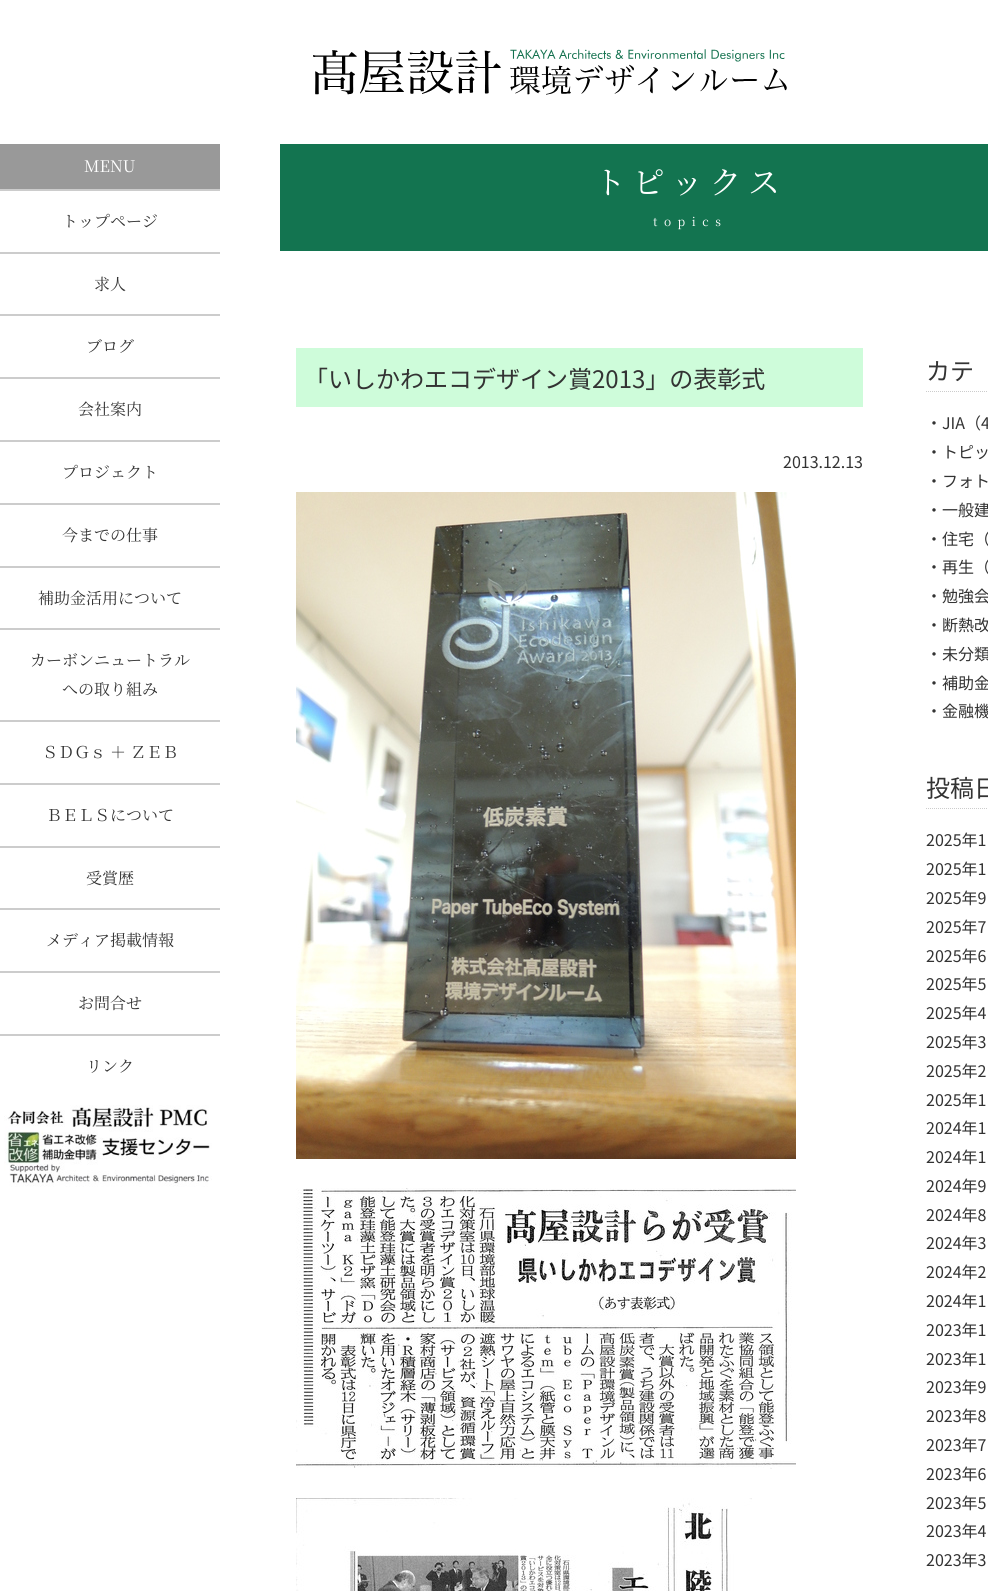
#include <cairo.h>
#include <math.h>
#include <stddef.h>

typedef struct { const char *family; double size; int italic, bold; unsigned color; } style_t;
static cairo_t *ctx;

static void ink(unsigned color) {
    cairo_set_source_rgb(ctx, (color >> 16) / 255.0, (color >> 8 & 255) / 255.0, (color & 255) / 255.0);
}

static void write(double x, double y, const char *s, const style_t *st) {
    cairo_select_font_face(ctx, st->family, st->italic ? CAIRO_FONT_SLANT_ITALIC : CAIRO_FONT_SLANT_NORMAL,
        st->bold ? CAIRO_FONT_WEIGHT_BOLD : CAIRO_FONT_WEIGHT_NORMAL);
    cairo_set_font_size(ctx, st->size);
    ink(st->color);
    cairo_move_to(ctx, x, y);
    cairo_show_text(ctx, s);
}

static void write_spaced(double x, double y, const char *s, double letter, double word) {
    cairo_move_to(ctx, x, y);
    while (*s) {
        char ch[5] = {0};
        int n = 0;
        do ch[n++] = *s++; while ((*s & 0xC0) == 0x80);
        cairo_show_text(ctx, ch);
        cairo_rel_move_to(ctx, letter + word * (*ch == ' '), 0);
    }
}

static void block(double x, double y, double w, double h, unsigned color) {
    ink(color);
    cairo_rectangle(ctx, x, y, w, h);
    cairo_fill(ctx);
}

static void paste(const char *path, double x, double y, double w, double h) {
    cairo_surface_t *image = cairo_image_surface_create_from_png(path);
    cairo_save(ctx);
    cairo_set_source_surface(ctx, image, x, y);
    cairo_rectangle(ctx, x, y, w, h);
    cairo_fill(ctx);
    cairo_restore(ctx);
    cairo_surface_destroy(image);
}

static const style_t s1 = {"Noto Serif JP", 16, 0, 0, 0xffffff};
static const style_t s2 = {"Noto Serif JP", 16, 0, 0, 0x333333};
static const style_t s3 = {"Noto Sans JP Thin", 24, 0, 0, 0x333333};
static const style_t s4 = {"Noto Sans JP Thin", 16, 0, 0, 0x333333};

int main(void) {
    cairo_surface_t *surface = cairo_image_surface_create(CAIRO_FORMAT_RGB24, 988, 1591);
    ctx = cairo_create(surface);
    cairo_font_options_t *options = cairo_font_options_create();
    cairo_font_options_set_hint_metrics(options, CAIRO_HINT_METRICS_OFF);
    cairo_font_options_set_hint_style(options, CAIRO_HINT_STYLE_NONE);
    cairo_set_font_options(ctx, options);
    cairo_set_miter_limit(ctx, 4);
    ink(0xffffff);
    cairo_paint(ctx);
    paste("pic1.png", 313, 49, 474, 46);
    block(0, 144, 220, 45, 0x999999);
    write(84, 172, "MENU", &s1);
    block(0, 189, 220, 2, 0xcccccc);
    write(62, 227, "トップページ", &s2);
    block(0, 252, 220, 2, 0xcccccc);
    write(94, 290, "求人", &s2);
    block(0, 314, 220, 2, 0xcccccc);
    write(86, 352, "ブログ", &s2);
    block(0, 377, 220, 2, 0xcccccc);
    write(78, 415, "会社案内", &s2);
    block(0, 440, 220, 2, 0xcccccc);
    write(62, 478, "プロジェクト", &s2);
    block(0, 503, 220, 2, 0xcccccc);
    write(62, 541, "今までの仕事", &s2);
    block(0, 566, 220, 2, 0xcccccc);
    write(38, 604, "補助金活用について", &s2);
    block(0, 628, 220, 2, 0xcccccc);
    write(30, 666, "カーボンニュートラル", &s2);
    write(62, 695, "への取り組み", &s2);
    block(0, 720, 220, 2, 0xcccccc);
    write(42, 758, "ＳＤＧｓ ＋ ＺＥＢ", &s2);
    block(0, 783, 220, 2, 0xcccccc);
    write(46, 821, "ＢＥＬＳについて", &s2);
    block(0, 846, 220, 2, 0xcccccc);
    write(86, 884, "受賞歴", &s2);
    block(0, 908, 220, 2, 0xcccccc);
    write(46, 946, "メディア掲載情報", &s2);
    block(0, 971, 220, 2, 0xcccccc);
    write(78, 1009, "お問合せ", &s2);
    block(0, 1034, 220, 2, 0xcccccc);
    write(86, 1072, "リンク", &s2);
    paste("pic2.png", 4, 1105, 208, 82);
    block(280, 144, 708, 107, 0x137450);
    cairo_set_font_size(ctx, 32);
    ink(0xffffff);
    write_spaced(594, 194, "トピックス", 6.5, 0);
    cairo_set_font_size(ctx, 12);
    write_spaced(653, 226, "topics", 6.5, 0);
    block(296, 348, 567, 59, 0xcefcda);
    write(304, 388, "「いしかわエコデザイン賞2013」の表彰式", &s3);
    write(783, 468, "2013.12.13", &s4);
    paste("pic3.png", 296, 492, 500, 667);
    paste("pic4.png", 296, 1188, 500, 281);
    paste("pic5.png", 296, 1498, 456, 93);
    cairo_new_path(ctx);
    cairo_move_to(ctx, 926, 391.5);
    cairo_line_to(ctx, 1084, 391.5);
    ink(0xcccccc);
    cairo_set_line_width(ctx, 1);
    cairo_set_dash(ctx, (double[]){1, 1}, 2, 0);
    cairo_stroke(ctx);
    write(926, 380, "カテ", &s3);
    write(926, 429, "・JIA（4", &s4);
    write(926, 458, "・トピッ", &s4);
    write(926, 487, "・フォト", &s4);
    write(926, 516, "・一般建", &s4);
    write(926, 545, "・住宅（", &s4);
    write(926, 573, "・再生（", &s4);
    write(926, 602, "・勉強会", &s4);
    write(926, 631, "・断熱改", &s4);
    write(926, 660, "・未分類", &s4);
    write(926, 689, "・補助金", &s4);
    write(926, 717, "・金融機", &s4);
    cairo_new_path(ctx);
    cairo_move_to(ctx, 926, 808.5);
    cairo_line_to(ctx, 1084, 808.5);
    ink(0xcccccc);
    cairo_stroke(ctx);
    write(926, 797, "投稿日", &s3);
    write(926, 846, "2025年1", &s4);
    write(926, 875, "2025年1", &s4);
    write(926, 904, "2025年9", &s4);
    write(926, 933, "2025年7", &s4);
    write(926, 962, "2025年6", &s4);
    write(926, 990, "2025年5", &s4);
    write(926, 1019, "2025年4", &s4);
    write(926, 1048, "2025年3", &s4);
    write(926, 1077, "2025年2", &s4);
    write(926, 1106, "2025年1", &s4);
    write(926, 1134, "2024年1", &s4);
    write(926, 1163, "2024年1", &s4);
    write(926, 1192, "2024年9", &s4);
    write(926, 1221, "2024年8", &s4);
    write(926, 1249, "2024年3", &s4);
    write(926, 1278, "2024年2", &s4);
    write(926, 1307, "2024年1", &s4);
    write(926, 1336, "2023年1", &s4);
    write(926, 1365, "2023年1", &s4);
    write(926, 1393, "2023年9", &s4);
    write(926, 1422, "2023年8", &s4);
    write(926, 1451, "2023年7", &s4);
    write(926, 1480, "2023年6", &s4);
    write(926, 1509, "2023年5", &s4);
    write(926, 1537, "2023年4", &s4);
    write(926, 1566, "2023年3", &s4);
    cairo_surface_write_to_png(surface, "screenshot.png");
    cairo_font_options_destroy(options);
    cairo_destroy(ctx);
    cairo_surface_destroy(surface);
    return 0;
}
